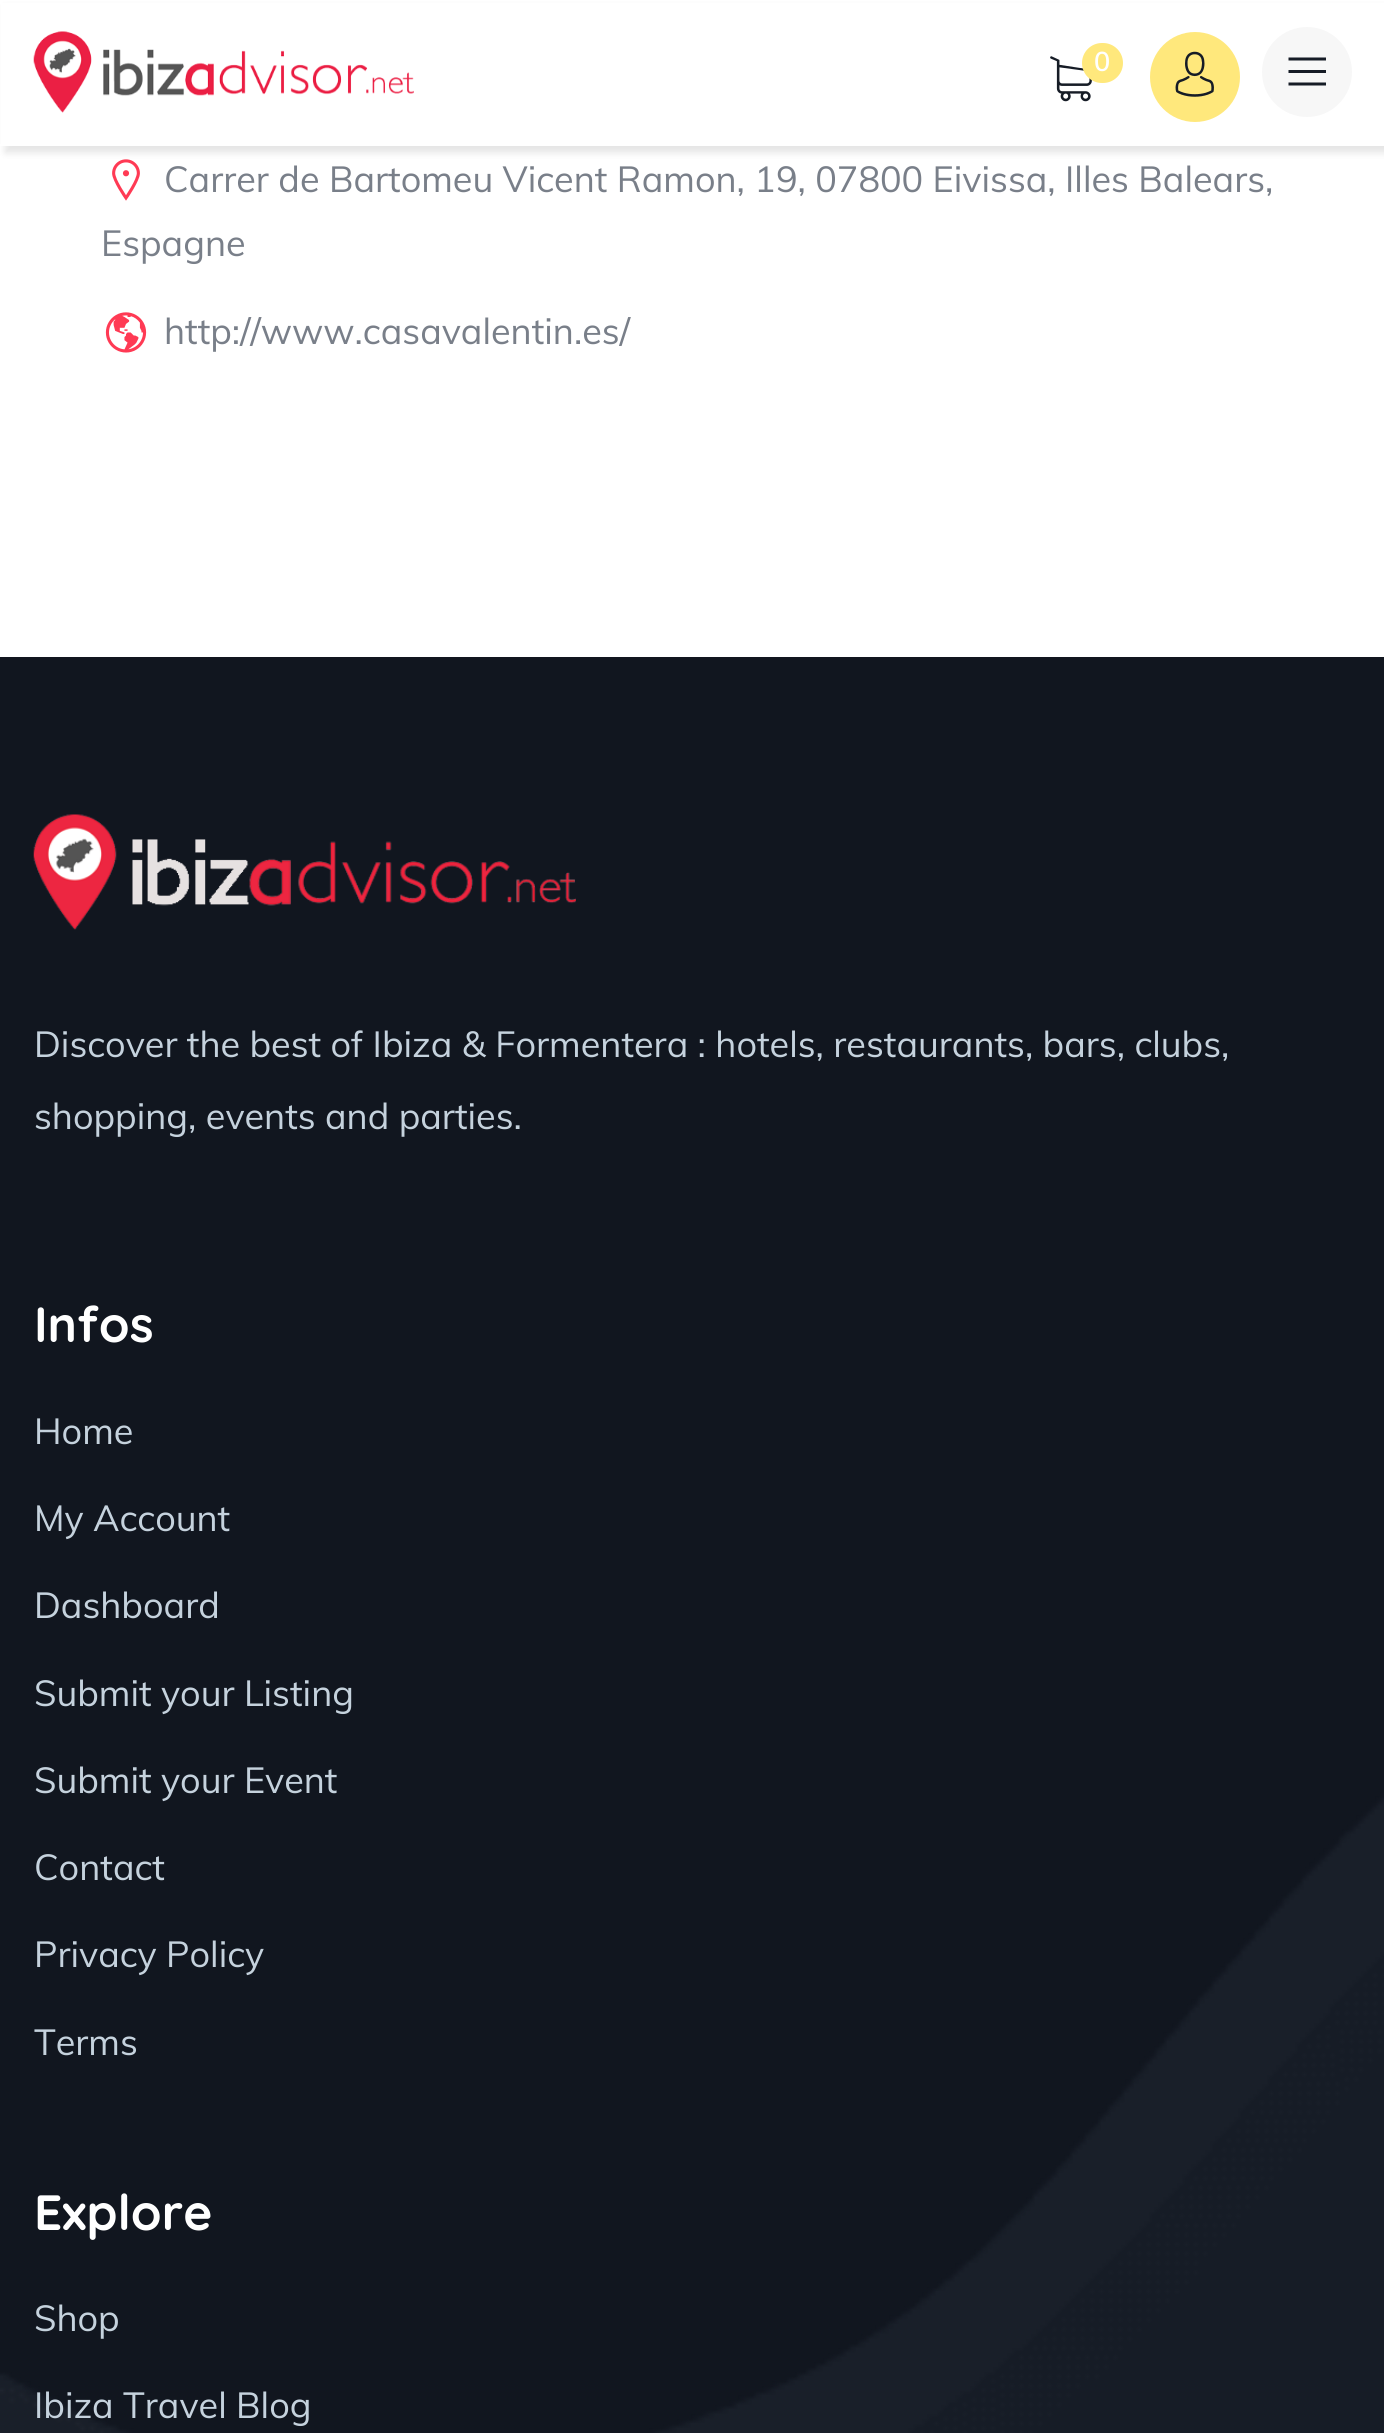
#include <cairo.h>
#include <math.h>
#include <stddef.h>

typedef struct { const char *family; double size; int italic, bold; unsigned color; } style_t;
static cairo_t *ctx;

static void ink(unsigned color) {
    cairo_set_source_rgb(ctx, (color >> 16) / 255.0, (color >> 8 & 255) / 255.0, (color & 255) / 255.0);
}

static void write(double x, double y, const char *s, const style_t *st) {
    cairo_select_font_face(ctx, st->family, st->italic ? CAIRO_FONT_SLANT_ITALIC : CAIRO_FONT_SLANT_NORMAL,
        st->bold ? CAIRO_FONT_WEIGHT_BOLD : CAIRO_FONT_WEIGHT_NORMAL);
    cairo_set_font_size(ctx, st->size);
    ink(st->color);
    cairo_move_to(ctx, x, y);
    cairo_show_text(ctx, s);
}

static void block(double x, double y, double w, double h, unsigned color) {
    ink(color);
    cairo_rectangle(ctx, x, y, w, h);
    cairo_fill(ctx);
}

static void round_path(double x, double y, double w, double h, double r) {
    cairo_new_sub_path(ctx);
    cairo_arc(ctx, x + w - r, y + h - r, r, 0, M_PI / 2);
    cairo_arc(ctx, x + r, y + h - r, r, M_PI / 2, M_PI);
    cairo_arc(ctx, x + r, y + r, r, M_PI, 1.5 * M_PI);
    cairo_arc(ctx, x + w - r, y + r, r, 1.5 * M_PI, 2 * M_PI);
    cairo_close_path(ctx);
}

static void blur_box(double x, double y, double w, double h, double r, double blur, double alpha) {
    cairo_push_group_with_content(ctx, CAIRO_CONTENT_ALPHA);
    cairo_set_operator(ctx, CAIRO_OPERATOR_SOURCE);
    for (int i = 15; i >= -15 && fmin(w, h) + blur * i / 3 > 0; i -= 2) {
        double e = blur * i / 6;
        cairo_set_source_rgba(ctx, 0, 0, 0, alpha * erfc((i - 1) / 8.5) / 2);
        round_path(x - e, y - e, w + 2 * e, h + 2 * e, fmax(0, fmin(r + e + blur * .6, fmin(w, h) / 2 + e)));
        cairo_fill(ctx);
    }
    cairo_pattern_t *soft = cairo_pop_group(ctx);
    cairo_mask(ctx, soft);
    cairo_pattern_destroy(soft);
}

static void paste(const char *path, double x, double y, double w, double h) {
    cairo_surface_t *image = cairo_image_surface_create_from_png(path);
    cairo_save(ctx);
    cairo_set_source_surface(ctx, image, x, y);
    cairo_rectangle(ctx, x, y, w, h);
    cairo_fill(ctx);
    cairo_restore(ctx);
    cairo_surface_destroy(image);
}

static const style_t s1 = {"Muli SemiBold", 27, 0, 0, 0xffffff};
static const style_t s2 = {"Muli", 36, 0, 0, 0x797f89};
static const style_t s3 = {"Muli", 36, 0, 0, 0xc5d2dd};
static const style_t s4 = {"Quicksand", 49.5, 0, 1, 0xffffff};

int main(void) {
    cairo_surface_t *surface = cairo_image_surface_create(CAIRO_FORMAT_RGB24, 1384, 2433);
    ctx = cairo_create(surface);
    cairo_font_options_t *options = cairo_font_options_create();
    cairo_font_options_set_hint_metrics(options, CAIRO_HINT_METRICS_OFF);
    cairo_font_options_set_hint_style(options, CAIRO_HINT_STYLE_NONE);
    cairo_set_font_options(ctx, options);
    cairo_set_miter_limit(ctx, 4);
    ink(0xffffff);
    cairo_paint(ctx);
    paste("pic4.png", 112, 159, 28, 42);
    ink(0x000000);
    blur_box(5, 7, 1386, 146, 0, 3.5, 0.1);
    block(1, 3, 1383, 141, 0xffffff);
    block(0, 144, 1384, 2, 0xffffff);
    paste("pic1.png", 33, 31, 381, 82);
    paste("pic2.png", 1050, 56, 42, 46);
    ink(0xffe87c);
    round_path(1082, 43, 41, 40, 20);
    cairo_fill(ctx);
    write(1094, 71, "0", &s1);
    ink(0xffe87c);
    cairo_new_path(ctx);
    cairo_arc(ctx, 1195, 77, 45, 0, 2 * M_PI);
    cairo_fill(ctx);
    paste("pic3.png", 1175, 51, 39, 46);
    ink(0xf7f7f7);
    cairo_arc(ctx, 1307, 72, 45, 0, 2 * M_PI);
    cairo_fill(ctx);
    ink(0x161c26);
    cairo_new_path(ctx);
    cairo_move_to(ctx, 1288.5, 57.5);
    cairo_line_to(ctx, 1288.5, 60.5);
    cairo_line_to(ctx, 1326, 60.5);
    cairo_line_to(ctx, 1326, 57.5);
    cairo_close_path(ctx);
    cairo_move_to(ctx, 1288.5, 70);
    cairo_line_to(ctx, 1288.5, 73);
    cairo_line_to(ctx, 1326, 73);
    cairo_line_to(ctx, 1326, 70);
    cairo_close_path(ctx);
    cairo_move_to(ctx, 1288.5, 82.5);
    cairo_line_to(ctx, 1288.5, 85.5);
    cairo_line_to(ctx, 1326, 85.5);
    cairo_line_to(ctx, 1326, 82.5);
    cairo_close_path(ctx);
    cairo_fill(ctx);
    write(164, 192, "Carrer de Bartomeu Vicent Ramon, 19, 07800 Eivissa, Illes Balears,", &s2);
    write(101, 256, "Espagne", &s2);
    paste("pic5.png", 105, 312, 42, 41);
    write(164, 344, "http://www.casavalentin.es/", &s2);
    block(0, 1792, 1384, 641, 0x161c26);
    paste("pic6.png", 0, 657, 1384, 1776);
    paste("pic7.png", 33, 814, 543, 116);
    write(34, 1057, "Discover the best of Ibiza & Formentera : hotels, restaurants, bars, clubs,", &s3);
    write(34, 1129, "shopping, events and parties.", &s3);
    write(34, 1342, "Infos", &s4);
    write(34, 1444, "Home", &s3);
    write(34, 1531, "My Account", &s3);
    write(34, 1618, "Dashboard", &s3);
    write(34, 1706, "Submit your Listing", &s3);
    write(34, 1793, "Submit your Event", &s3);
    write(34, 1880, "Contact", &s3);
    write(34, 1967, "Privacy Policy", &s3);
    write(34, 2055, "Terms", &s3);
    write(34, 2230, "Explore", &s4);
    write(34, 2331, "Shop", &s3);
    write(34, 2418, "Ibiza Travel Blog", &s3);
    cairo_surface_write_to_png(surface, "screenshot.png");
    cairo_font_options_destroy(options);
    cairo_destroy(ctx);
    cairo_surface_destroy(surface);
    return 0;
}
